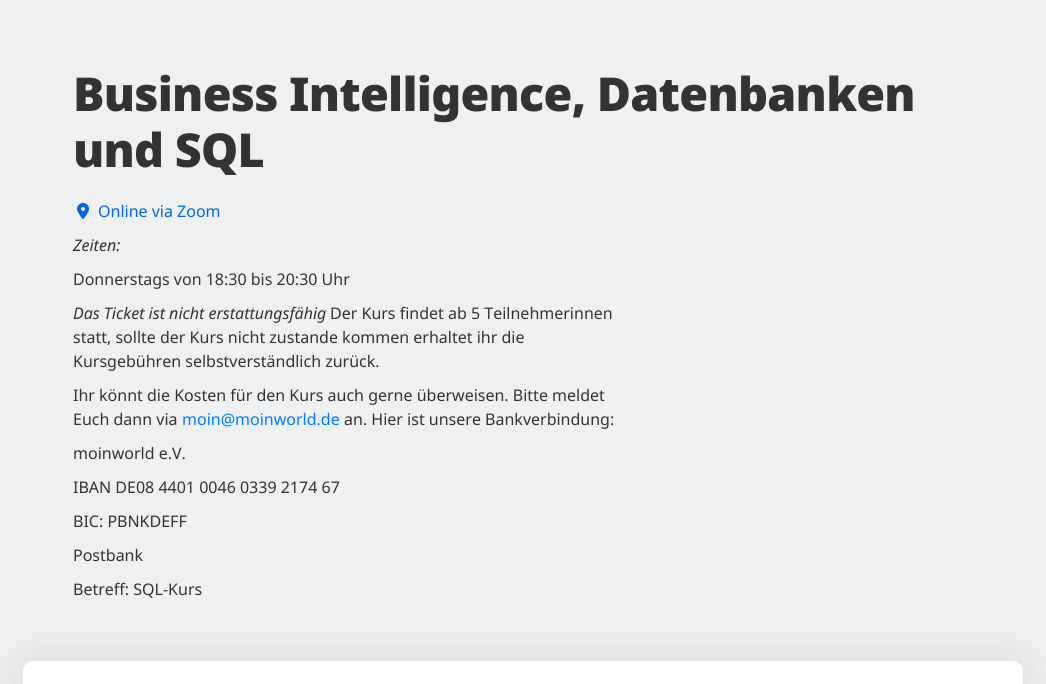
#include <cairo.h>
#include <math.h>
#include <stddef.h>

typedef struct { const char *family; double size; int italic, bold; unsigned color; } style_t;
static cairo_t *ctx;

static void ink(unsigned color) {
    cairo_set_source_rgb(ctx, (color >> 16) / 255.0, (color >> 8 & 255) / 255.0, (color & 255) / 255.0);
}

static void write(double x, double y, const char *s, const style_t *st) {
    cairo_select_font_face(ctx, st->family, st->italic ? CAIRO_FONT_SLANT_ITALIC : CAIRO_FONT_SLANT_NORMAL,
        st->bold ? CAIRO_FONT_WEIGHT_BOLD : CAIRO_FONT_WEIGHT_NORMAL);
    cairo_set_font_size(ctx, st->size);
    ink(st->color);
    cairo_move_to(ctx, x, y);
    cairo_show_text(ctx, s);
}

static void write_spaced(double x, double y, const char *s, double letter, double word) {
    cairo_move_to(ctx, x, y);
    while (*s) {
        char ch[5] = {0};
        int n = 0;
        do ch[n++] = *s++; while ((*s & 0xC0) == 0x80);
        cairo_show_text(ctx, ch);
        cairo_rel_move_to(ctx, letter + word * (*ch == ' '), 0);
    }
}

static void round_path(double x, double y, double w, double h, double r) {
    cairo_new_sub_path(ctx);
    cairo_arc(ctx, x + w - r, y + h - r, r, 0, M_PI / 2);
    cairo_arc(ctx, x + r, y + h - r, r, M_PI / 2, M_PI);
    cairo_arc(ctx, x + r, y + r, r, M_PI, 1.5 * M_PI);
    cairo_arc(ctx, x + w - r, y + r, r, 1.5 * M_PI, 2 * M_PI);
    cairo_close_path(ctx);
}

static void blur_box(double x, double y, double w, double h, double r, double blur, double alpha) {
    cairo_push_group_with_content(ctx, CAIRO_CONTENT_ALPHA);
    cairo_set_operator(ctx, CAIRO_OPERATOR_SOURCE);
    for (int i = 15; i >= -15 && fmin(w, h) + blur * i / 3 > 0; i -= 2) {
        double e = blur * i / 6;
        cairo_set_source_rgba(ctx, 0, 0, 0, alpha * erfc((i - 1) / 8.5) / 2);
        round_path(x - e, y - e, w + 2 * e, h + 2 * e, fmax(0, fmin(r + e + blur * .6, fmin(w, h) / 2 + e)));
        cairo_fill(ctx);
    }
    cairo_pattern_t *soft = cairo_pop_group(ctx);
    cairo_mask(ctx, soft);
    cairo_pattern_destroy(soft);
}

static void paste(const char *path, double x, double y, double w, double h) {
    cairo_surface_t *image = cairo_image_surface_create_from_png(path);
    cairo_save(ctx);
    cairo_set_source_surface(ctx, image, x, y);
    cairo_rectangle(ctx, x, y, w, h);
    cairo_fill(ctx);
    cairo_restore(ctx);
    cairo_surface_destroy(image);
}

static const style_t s1 = {"Noto Sans", 16, 0, 0, 0x0067e1};
static const style_t s2 = {"Noto Sans", 16, 1, 0, 0x333333};
static const style_t s3 = {"Noto Sans", 16, 0, 0, 0x333333};
static const style_t s4 = {"Noto Sans", 16, 0, 0, 0x007bff};

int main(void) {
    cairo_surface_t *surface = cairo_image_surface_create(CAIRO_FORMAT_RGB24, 1046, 684);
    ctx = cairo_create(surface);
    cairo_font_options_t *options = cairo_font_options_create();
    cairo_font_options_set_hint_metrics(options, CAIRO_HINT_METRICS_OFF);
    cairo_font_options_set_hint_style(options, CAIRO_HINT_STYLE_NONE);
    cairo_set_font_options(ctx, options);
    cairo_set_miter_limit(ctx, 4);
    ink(0xeff0f2);
    cairo_paint(ctx);
    cairo_select_font_face(ctx, "Noto Sans Black", CAIRO_FONT_SLANT_NORMAL, CAIRO_FONT_WEIGHT_NORMAL);
    cairo_set_font_size(ctx, 46.7);
    ink(0x333333);
    write_spaced(73, 111, "Business Intelligence, Datenbanken", -0.75, 0);
    write_spaced(73, 167, "und SQL", -0.75, 0);
    paste("pic1.png", 77, 203, 12, 16);
    write(98, 217, "Online via Zoom", &s1);
    write(73, 251, "Zeiten:", &s2);
    write(73, 285, "Donnerstags von 18:30 bis 20:30 Uhr", &s3);
    write(73, 319, "Das Ticket ist nicht erstattungsfähig", &s2);
    write(330, 319, "Der Kurs findet ab 5 Teilnehmerinnen", &s3);
    write(73, 343, "statt, sollte der Kurs nicht zustande kommen erhaltet ihr die", &s3);
    write(73, 367, "Kursgebühren selbstverständlich zurück.", &s3);
    write(73, 401, "Ihr könnt die Kosten für den Kurs auch gerne überweisen. Bitte meldet", &s3);
    write(73, 425, "Euch dann via", &s3);
    write(182, 425, "moin@moinworld.de", &s4);
    write(344, 425, "an. Hier ist unsere Bankverbindung:", &s3);
    write(73, 459, "moinworld e.V.", &s3);
    write(73, 493, "IBAN DE08 4401 0046 0339 2174 67", &s3);
    write(73, 527, "BIC: PBNKDEFF", &s3);
    write(73, 561, "Postbank", &s3);
    write(73, 595, "Betreff: SQL-Kurs", &s3);
    ink(0x000000);
    blur_box(23, 661, 1000, 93, 10, 20, 0.1);
    ink(0xffffff);
    round_path(23, 661, 1000, 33, 10);
    cairo_fill(ctx);
    cairo_surface_write_to_png(surface, "screenshot.png");
    cairo_font_options_destroy(options);
    cairo_destroy(ctx);
    cairo_surface_destroy(surface);
    return 0;
}
